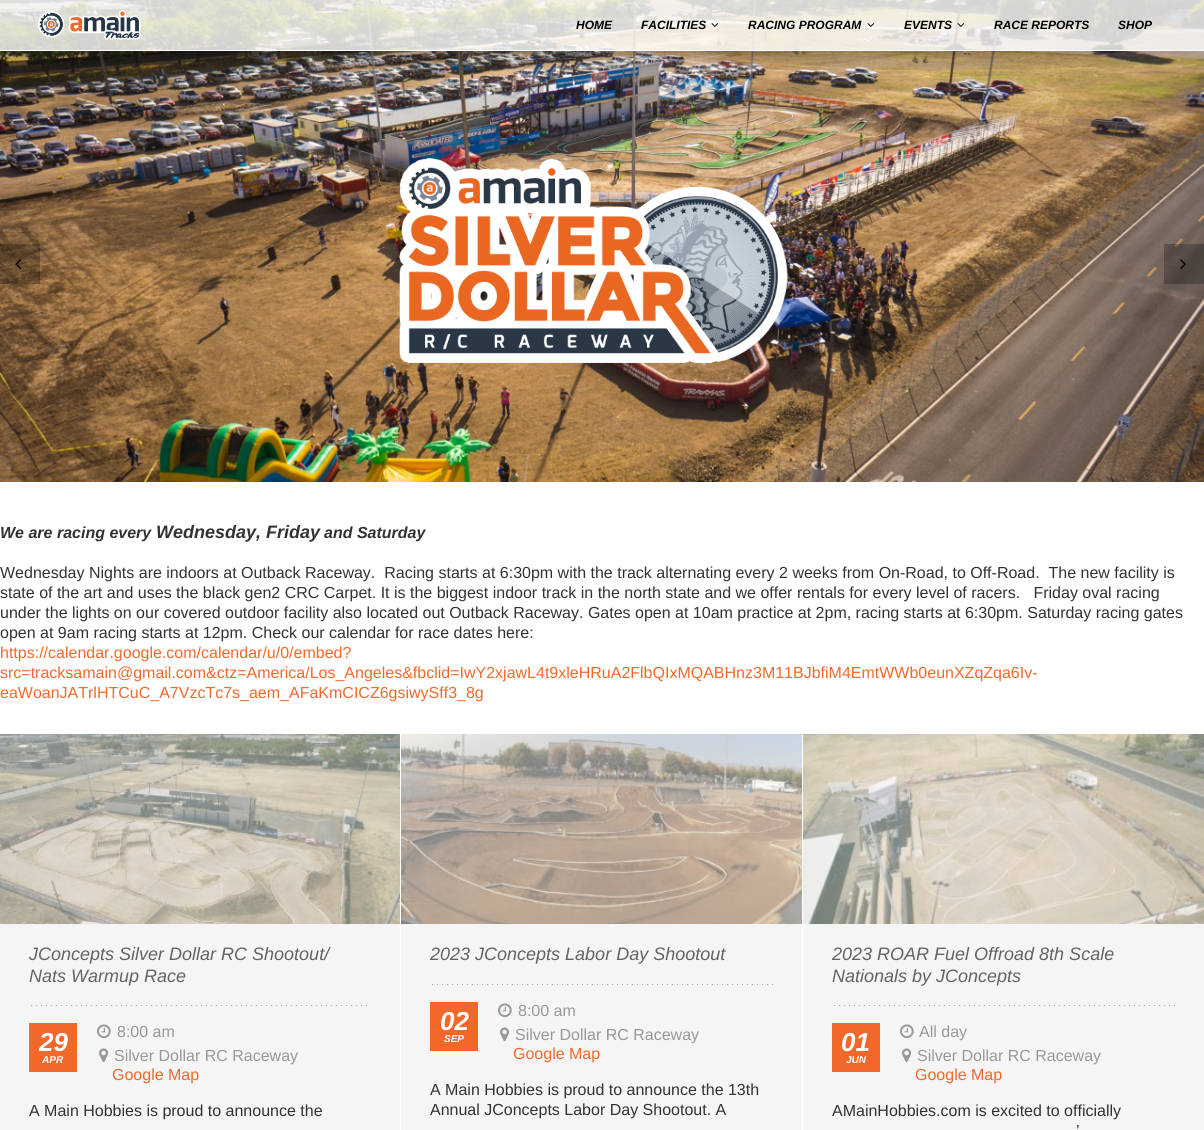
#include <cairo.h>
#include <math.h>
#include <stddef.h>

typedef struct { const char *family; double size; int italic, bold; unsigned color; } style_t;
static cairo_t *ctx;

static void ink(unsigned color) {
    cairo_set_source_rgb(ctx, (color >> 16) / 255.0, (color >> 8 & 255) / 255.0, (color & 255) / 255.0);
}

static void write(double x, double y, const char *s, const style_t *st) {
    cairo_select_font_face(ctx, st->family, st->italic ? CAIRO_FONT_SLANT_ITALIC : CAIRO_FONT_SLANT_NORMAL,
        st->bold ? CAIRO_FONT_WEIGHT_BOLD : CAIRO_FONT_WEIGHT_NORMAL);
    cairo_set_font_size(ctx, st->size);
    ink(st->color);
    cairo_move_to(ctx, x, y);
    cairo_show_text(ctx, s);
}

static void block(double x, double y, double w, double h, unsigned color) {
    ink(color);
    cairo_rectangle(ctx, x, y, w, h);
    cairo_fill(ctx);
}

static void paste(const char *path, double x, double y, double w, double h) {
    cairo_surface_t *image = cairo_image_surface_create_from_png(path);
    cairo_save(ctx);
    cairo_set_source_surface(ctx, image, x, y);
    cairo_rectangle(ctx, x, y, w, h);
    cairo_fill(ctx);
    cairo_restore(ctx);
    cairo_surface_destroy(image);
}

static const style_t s1 = {"Liberation Sans", 12, 1, 1, 0x000000};
static const style_t s2 = {"Liberation Sans", 16, 1, 1, 0x323232};
static const style_t s3 = {"Liberation Sans", 18, 1, 1, 0x323232};
static const style_t s4 = {"Liberation Sans", 16, 0, 0, 0x323232};
static const style_t s5 = {"Liberation Sans", 16, 0, 0, 0xf2682a};
static const style_t s6 = {"Liberation Sans", 18, 1, 0, 0x636363};
static const style_t s7 = {"Liberation Sans", 26, 1, 1, 0xffffff};
static const style_t s8 = {"Liberation Sans", 10, 1, 1, 0xffffff};
static const style_t s9 = {"Liberation Sans", 16, 0, 0, 0x989898};

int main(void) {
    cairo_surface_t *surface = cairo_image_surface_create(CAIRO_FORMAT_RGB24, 1204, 1130);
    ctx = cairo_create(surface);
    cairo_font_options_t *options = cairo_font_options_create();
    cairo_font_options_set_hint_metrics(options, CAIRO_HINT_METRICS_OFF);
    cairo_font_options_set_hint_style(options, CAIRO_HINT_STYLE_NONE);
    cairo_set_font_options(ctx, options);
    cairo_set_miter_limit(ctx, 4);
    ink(0xffffff);
    cairo_paint(ctx);
    paste("pic1.png", 0, 0, 1204, 482);
    paste("pic2.png", 399, 158, 389, 206);
    cairo_set_source_rgba(ctx, 0, 0, 0, 0.25);
    cairo_rectangle(ctx, 0, 244, 40, 40);
    cairo_fill(ctx);
    paste("pic3.png", 15, 259, 7, 11);
    cairo_rectangle(ctx, 1164, 244, 40, 40);
    cairo_fill(ctx);
    paste("pic4.png", 1180, 259, 6, 11);
    cairo_set_source_rgba(ctx, 1, 1, 1, 0.8);
    cairo_rectangle(ctx, 0, 0, 1204, 50);
    cairo_fill(ctx);
    block(0, 50, 1204, 1, 0xffffff);
    paste("pic5.png", 38, 10, 103, 30);
    write(576, 29, "HOME", &s1);
    write(641, 29, "FACILITIES", &s1);
    paste("pic6.png", 711, 23, 8, 4);
    write(748, 29, "RACING PROGRAM", &s1);
    paste("pic7.png", 867, 23, 8, 4);
    write(904, 29, "EVENTS", &s1);
    paste("pic8.png", 957, 23, 8, 4);
    write(994, 29, "RACE REPORTS", &s1);
    write(1118, 29, "SHOP", &s1);
    paste("pic9.png", 78, 51, 1036, 19);
    write(0, 538, "We are racing every", &s2);
    write(156, 538, "Wednesday, Friday", &s3);
    write(324, 538, "and Saturday", &s2);
    write(0, 578, "Wednesday Nights are indoors at Outback Raceway.  Racing starts at 6:30pm with the track alternating every 2 weeks from On-Road, to Off-Road.  The new facility is", &s4);
    write(0, 598, "state of the art and uses the black gen2 CRC Carpet. It is the biggest indoor track in the north state and we offer rentals for every level of racers.   Friday oval racing", &s4);
    write(0, 618, "under the lights on our covered outdoor facility also located out Outback Raceway. Gates open at 10am practice at 2pm, racing starts at 6:30pm. Saturday racing gates", &s4);
    write(0, 638, "open at 9am racing starts at 12pm. Check our calendar for race dates here:", &s4);
    write(0, 658, "https://calendar.google.com/calendar/u/0/embed?", &s5);
    write(0, 678, "src=tracksamain@gmail.com&ctz=America/Los_Angeles&fbclid=IwY2xjawL4t9xleHRuA2FlbQIxMQABHnz3M11BJbfiM4EmtWWb0eunXZqZqa6Iv-", &s5);
    write(0, 698, "eaWoanJATrlHTCuC_A7VzcTc7s_aem_AFaKmCICZ6gsiwySff3_8g", &s5);
    block(0, 734, 400, 396, 0xf5f5f5);
    paste("pic10.png", 0, 734, 400, 190);
    write(29, 960, "JConcepts Silver Dollar RC Shootout/", &s6);
    write(29, 982, "Nats Warmup Race", &s6);
    paste("pic11.png", 31, 1005, 336, 1);
    block(29, 1023, 48, 49, 0xf2682a);
    write(39, 1051, "29", &s7);
    write(42, 1063, "APR", &s8);
    paste("pic12.png", 97, 1024, 14, 15);
    write(117, 1037, "8:00 am", &s9);
    paste("pic13.png", 99, 1048, 10, 15);
    write(114, 1061, "Silver Dollar RC Raceway", &s9);
    write(112, 1080, "Google Map", &s5);
    write(29, 1116, "A Main Hobbies is proud to announce the", &s4);
    block(401, 734, 401, 396, 0xf5f5f5);
    paste("pic14.png", 401, 734, 401, 190);
    write(430, 960, "2023 JConcepts Labor Day Shootout", &s6);
    paste("pic15.png", 432, 984, 341, 1);
    block(430, 1002, 48, 49, 0xf2682a);
    write(440, 1030, "02", &s7);
    write(444, 1042, "SEP", &s8);
    paste("pic12.png", 498, 1003, 14, 15);
    write(518, 1016, "8:00 am", &s9);
    paste("pic13.png", 500, 1027, 10, 15);
    write(515, 1040, "Silver Dollar RC Raceway", &s9);
    write(513, 1059, "Google Map", &s5);
    write(430, 1095, "A Main Hobbies is proud to announce the 13th", &s4);
    write(430, 1115, "Annual JConcepts Labor Day Shootout. A", &s4);
    block(803, 734, 401, 396, 0xf5f5f5);
    paste("pic16.png", 803, 734, 401, 190);
    write(832, 960, "2023 ROAR Fuel Offroad 8th Scale", &s6);
    write(832, 982, "Nationals by JConcepts", &s6);
    paste("pic15.png", 834, 1005, 341, 1);
    block(832, 1023, 48, 49, 0xf2682a);
    write(841, 1051, "01", &s7);
    write(846, 1063, "JUN", &s8);
    paste("pic12.png", 900, 1024, 14, 15);
    write(919, 1037, "All day", &s9);
    paste("pic13.png", 902, 1048, 10, 15);
    write(917, 1061, "Silver Dollar RC Raceway", &s9);
    write(915, 1080, "Google Map", &s5);
    write(832, 1116, "AMainHobbies.com is excited to officially", &s4);
    write(1076, 1136, "’", &s4);
    cairo_surface_write_to_png(surface, "screenshot.png");
    cairo_font_options_destroy(options);
    cairo_destroy(ctx);
    cairo_surface_destroy(surface);
    return 0;
}
